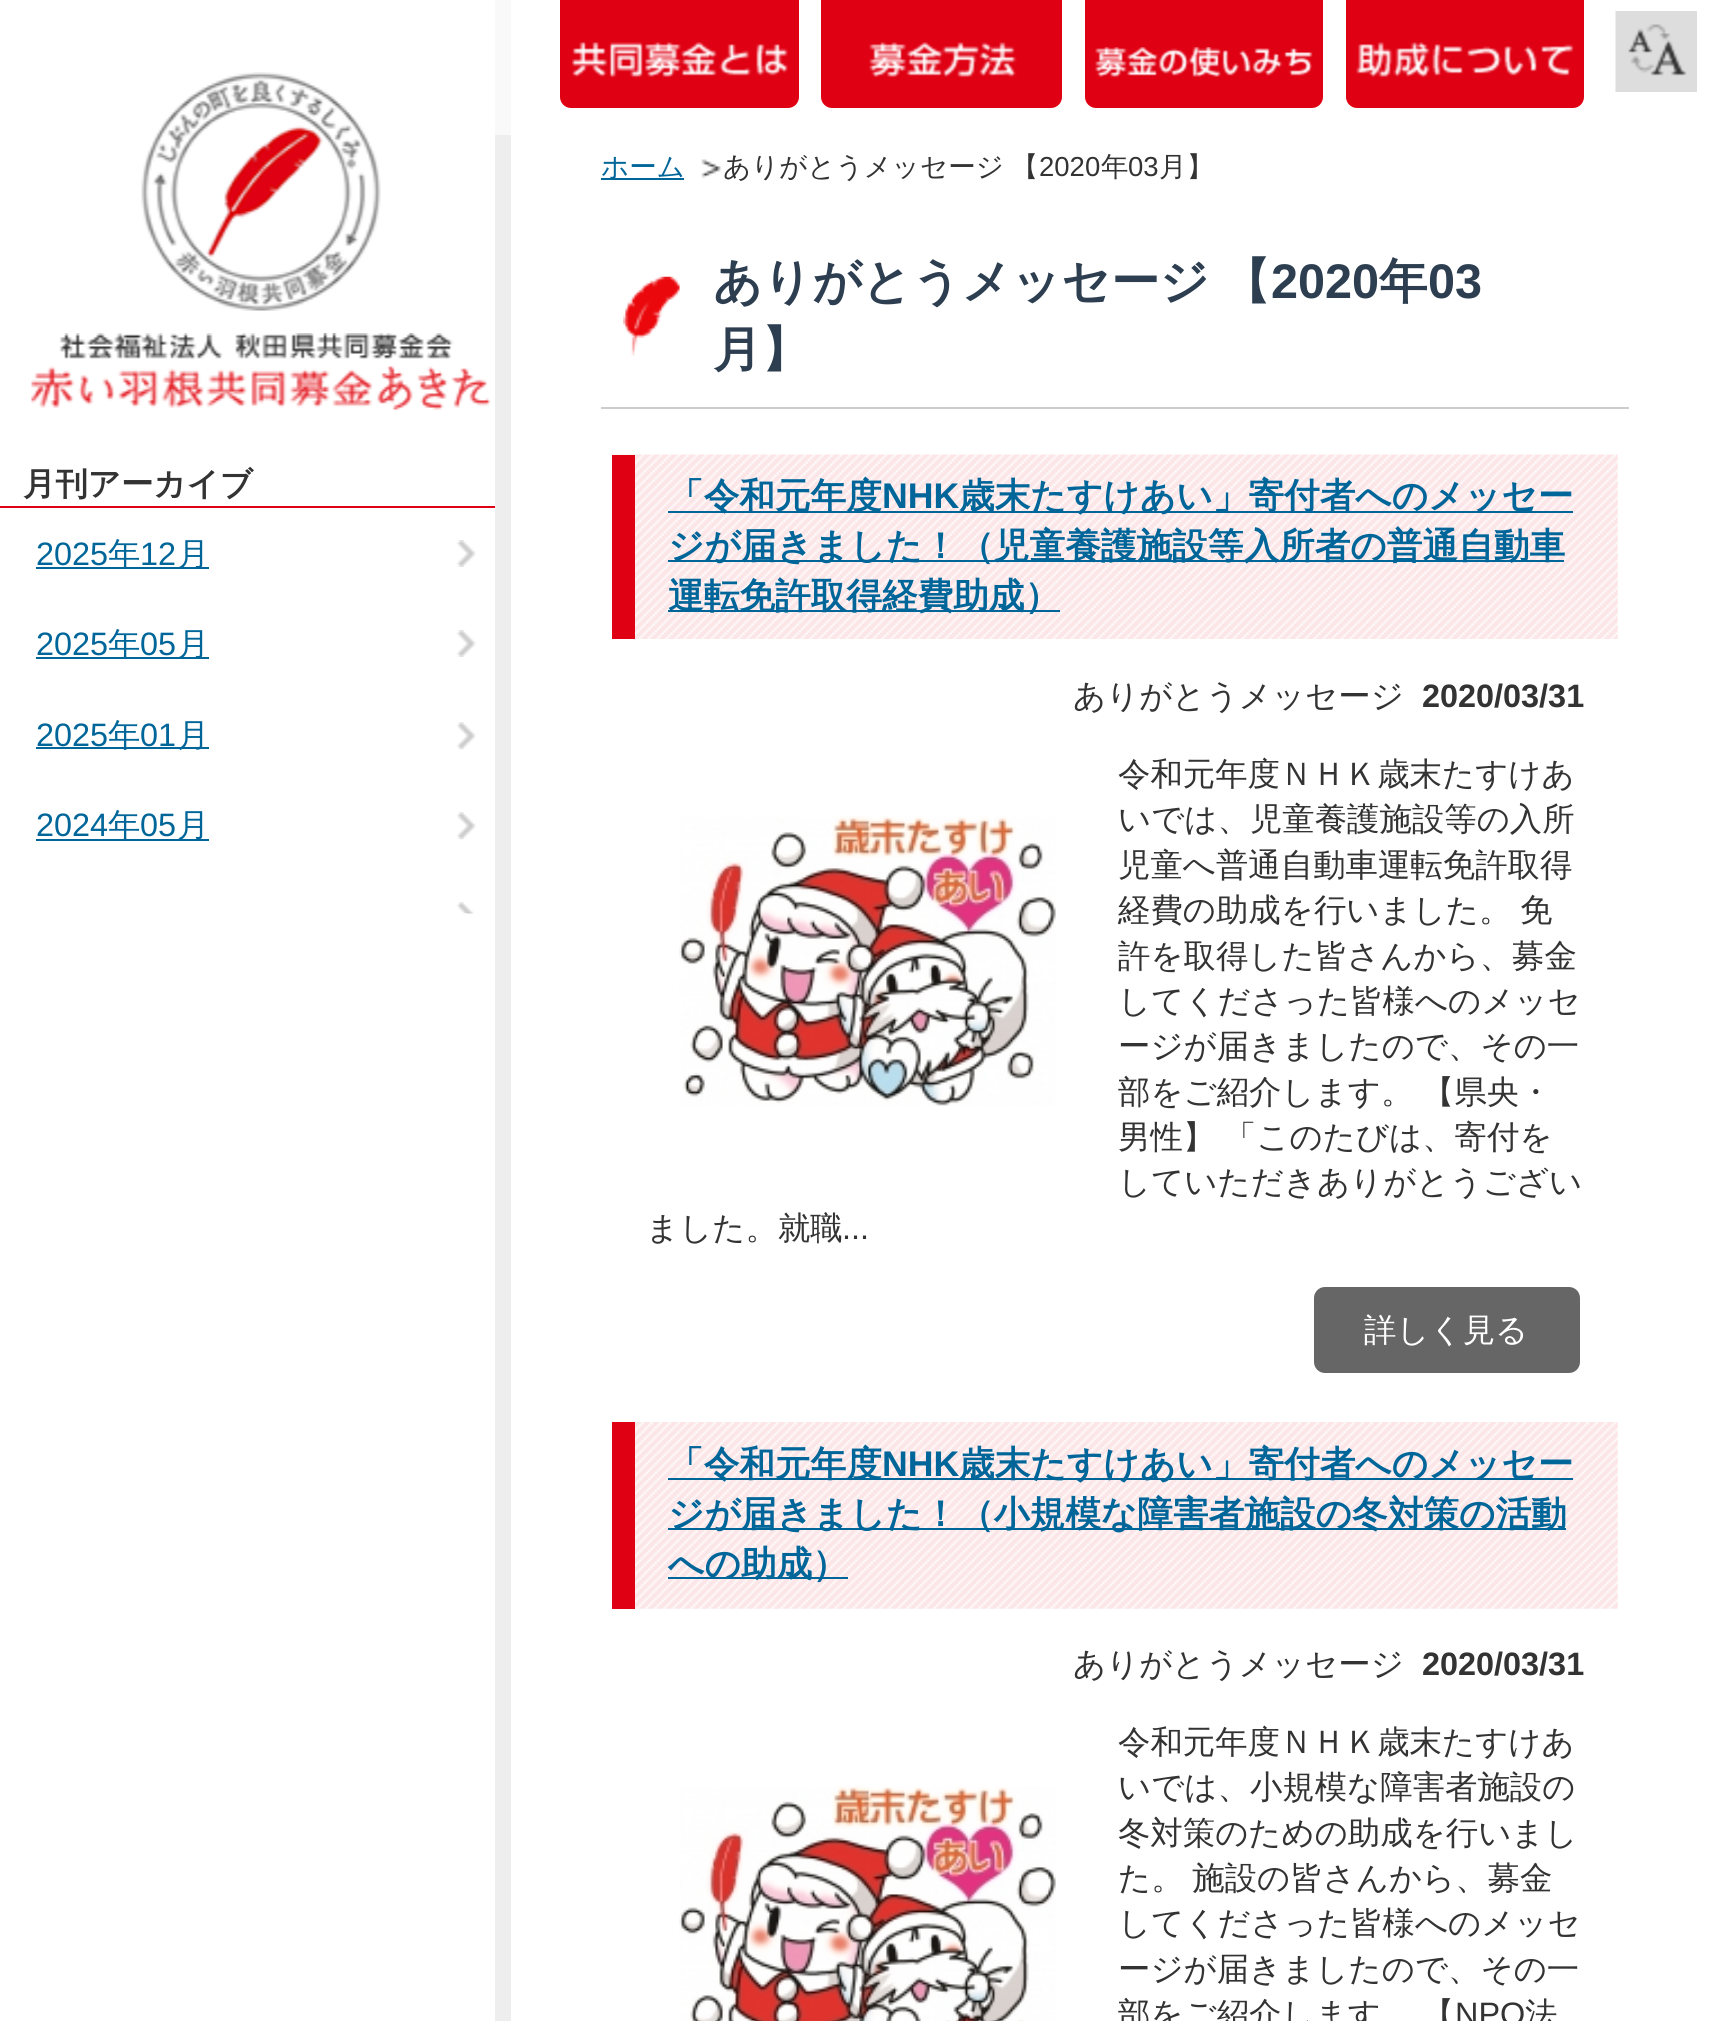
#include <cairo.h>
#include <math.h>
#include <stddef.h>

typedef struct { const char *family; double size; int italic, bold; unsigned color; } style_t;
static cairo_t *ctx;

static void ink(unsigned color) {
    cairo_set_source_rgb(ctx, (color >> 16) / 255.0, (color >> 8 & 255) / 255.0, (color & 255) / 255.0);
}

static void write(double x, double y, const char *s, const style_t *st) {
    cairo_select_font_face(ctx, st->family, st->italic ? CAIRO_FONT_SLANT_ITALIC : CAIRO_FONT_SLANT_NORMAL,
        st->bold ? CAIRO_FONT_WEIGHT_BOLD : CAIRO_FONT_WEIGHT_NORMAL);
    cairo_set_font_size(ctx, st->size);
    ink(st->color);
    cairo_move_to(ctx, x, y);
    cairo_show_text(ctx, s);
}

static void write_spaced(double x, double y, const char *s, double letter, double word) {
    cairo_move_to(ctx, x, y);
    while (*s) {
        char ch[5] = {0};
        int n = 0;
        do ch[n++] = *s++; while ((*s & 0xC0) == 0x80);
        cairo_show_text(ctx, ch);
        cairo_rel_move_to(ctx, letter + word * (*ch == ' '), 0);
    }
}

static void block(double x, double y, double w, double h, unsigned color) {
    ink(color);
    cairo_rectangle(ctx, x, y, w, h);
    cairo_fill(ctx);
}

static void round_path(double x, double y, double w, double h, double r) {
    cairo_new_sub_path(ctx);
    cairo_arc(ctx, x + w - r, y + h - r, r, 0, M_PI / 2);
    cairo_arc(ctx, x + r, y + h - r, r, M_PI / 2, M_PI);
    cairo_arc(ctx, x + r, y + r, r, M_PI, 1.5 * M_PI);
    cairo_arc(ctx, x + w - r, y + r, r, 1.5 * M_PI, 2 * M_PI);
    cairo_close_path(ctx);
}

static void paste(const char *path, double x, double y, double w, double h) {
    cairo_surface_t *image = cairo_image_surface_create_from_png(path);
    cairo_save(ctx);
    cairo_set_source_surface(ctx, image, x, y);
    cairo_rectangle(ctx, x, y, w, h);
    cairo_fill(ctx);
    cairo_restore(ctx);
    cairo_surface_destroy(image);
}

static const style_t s1 = {"WenQuanYi Zen Hei", 32.4, 0, 1, 0x333333};
static const style_t s2 = {"Liberation Sans", 32.4, 0, 0, 0x006699};
static const style_t s3 = {"WenQuanYi Zen Hei Medium", 32.4, 0, 0, 0x006699};
static const style_t s4 = {"WenQuanYi Zen Hei Medium", 27.5, 0, 0, 0x006699};
static const style_t s5 = {"Liberation Sans", 27.5, 0, 0, 0x333333};
static const style_t s6 = {"WenQuanYi Zen Hei Medium", 27.5, 0, 0, 0x333333};
static const style_t s7 = {"Liberation Sans", 48.6, 0, 1, 0x2c3e50};
static const style_t s8 = {"WenQuanYi Zen Hei", 48.6, 0, 1, 0x2c3e50};
static const style_t s9 = {"WenQuanYi Zen Hei", 35.65, 0, 1, 0x006699};
static const style_t s10 = {"Liberation Sans", 35.65, 0, 1, 0x006699};
static const style_t s11 = {"WenQuanYi Zen Hei Medium", 32.4, 0, 0, 0x333333};
static const style_t s12 = {"Liberation Sans", 32.4, 0, 1, 0x333333};
static const style_t s13 = {"Liberation Sans", 32.4, 0, 0, 0x333333};
static const style_t s14 = {"WenQuanYi Zen Hei Medium", 32.4, 0, 0, 0xffffff};

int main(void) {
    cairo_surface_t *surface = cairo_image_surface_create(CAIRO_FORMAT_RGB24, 1717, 2021);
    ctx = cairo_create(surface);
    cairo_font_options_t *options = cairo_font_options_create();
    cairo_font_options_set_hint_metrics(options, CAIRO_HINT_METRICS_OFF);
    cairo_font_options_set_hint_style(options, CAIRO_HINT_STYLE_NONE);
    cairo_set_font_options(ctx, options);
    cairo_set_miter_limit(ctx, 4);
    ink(0xffffff);
    cairo_paint(ctx);
    block(495, 135, 16, 1886, 0xeeeeee);
    paste("pic1.png", 141, 72, 240, 239);
    paste("pic2.png", 31, 333, 460, 77);
    block(495, 0, 16, 135, 0xf9f9f9);
    ink(0xdf0013);
    cairo_new_path(ctx);
    cairo_move_to(ctx, 560, 0);
    cairo_line_to(ctx, 799, 0);
    cairo_line_to(ctx, 799, 97);
    cairo_curve_to(ctx, 799, 103, 794, 108, 788, 108);
    cairo_line_to(ctx, 571, 108);
    cairo_curve_to(ctx, 565, 108, 560, 103, 560, 97);
    cairo_close_path(ctx);
    cairo_fill(ctx);
    paste("pic3.png", 572, 42, 216, 36);
    cairo_new_path(ctx);
    cairo_move_to(ctx, 821, 0);
    cairo_line_to(ctx, 1062, 0);
    cairo_line_to(ctx, 1062, 97);
    cairo_curve_to(ctx, 1062, 103, 1057, 108, 1051, 108);
    cairo_line_to(ctx, 832, 108);
    cairo_curve_to(ctx, 826, 108, 821, 103, 821, 97);
    cairo_close_path(ctx);
    cairo_fill(ctx);
    paste("pic4.png", 869, 42, 148, 36);
    cairo_new_path(ctx);
    cairo_move_to(ctx, 1085, 0);
    cairo_line_to(ctx, 1323, 0);
    cairo_line_to(ctx, 1323, 97);
    cairo_curve_to(ctx, 1323, 103, 1318, 108, 1312, 108);
    cairo_line_to(ctx, 1096, 108);
    cairo_curve_to(ctx, 1090, 108, 1085, 103, 1085, 97);
    cairo_close_path(ctx);
    cairo_fill(ctx);
    paste("pic5.png", 1095, 47, 218, 31);
    cairo_new_path(ctx);
    cairo_move_to(ctx, 1346, 0);
    cairo_line_to(ctx, 1584, 0);
    cairo_line_to(ctx, 1584, 97);
    cairo_curve_to(ctx, 1584, 103, 1579, 108, 1573, 108);
    cairo_line_to(ctx, 1357, 108);
    cairo_curve_to(ctx, 1351, 108, 1346, 103, 1346, 97);
    cairo_close_path(ctx);
    cairo_fill(ctx);
    paste("pic6.png", 1356, 42, 218, 36);
    paste("pic7.png", 1615, 11, 82, 81);
    block(0, 506, 495, 2, 0xdf0013);
    write(23, 495, "月刊アーカイブ", &s1);
    paste("pic8.png", 456, 540, 20, 27);
    write(36, 565, "2025", &s2);
    block(36, 567, 173, 2, 0x006699);
    write(108, 565, "年", &s3);
    write(140, 565, "12", &s2);
    write(177, 565, "月", &s3);
    paste("pic8.png", 456, 630, 20, 27);
    write(36, 655, "2025", &s2);
    block(36, 657, 173, 2, 0x006699);
    write(108, 655, "年", &s3);
    write(140, 655, "05", &s2);
    write(177, 655, "月", &s3);
    paste("pic9.png", 457, 722, 19, 28);
    write(36, 746, "2025", &s2);
    block(36, 747, 173, 2, 0x006699);
    write(108, 746, "年", &s3);
    write(140, 746, "01", &s2);
    write(177, 746, "月", &s3);
    paste("pic9.png", 457, 812, 19, 28);
    write(36, 836, "2024", &s2);
    block(36, 839, 173, 2, 0x006699);
    write(108, 836, "年", &s3);
    write(140, 836, "05", &s2);
    write(177, 836, "月", &s3);
    paste("pic10.png", 457, 902, 17, 12);
    paste("pic11.png", 701, 159, 20, 20);
    block(601, 178, 83, 2, 0x006699);
    write(601, 176, "ホーム", &s4);
    ink(0x333333);
    write_spaced(723, 176, "ありがとうメッセージ 【", 0, -1);
    write(1039, 176, "2020", &s5);
    write(1101, 176, "年", &s6);
    write(1128, 176, "03", &s5);
    write(1159, 176, "月】", &s6);
    paste("pic12.png", 623, 276, 57, 80);
    block(601, 407, 1028, 2, 0xcccccc);
    cairo_select_font_face(ctx, "WenQuanYi Zen Hei", CAIRO_FONT_SLANT_NORMAL, CAIRO_FONT_WEIGHT_BOLD);
    cairo_set_font_size(ctx, 48.6);
    ink(0x2c3e50);
    write_spaced(713, 298, "ありがとうメッセージ 【", 0, -2);
    write(1271, 298, "2020", &s7);
    write(1379, 298, "年", &s8);
    write(1428, 298, "03", &s7);
    write(713, 366, "月】", &s8);
    paste("pic13.png", 612, 454, 1006, 185);
    block(612, 455, 23, 184, 0xdf0013);
    block(668, 511, 905, 2, 0x006699);
    write(668, 508, "「令和元年度", &s9);
    write(882, 508, "NHK", &s10);
    write(959, 508, "歳末たすけあい」寄付者へのメッセー", &s9);
    block(668, 560, 896, 2, 0x006699);
    write(668, 558, "ジが届きました！（児童養護施設等入所者の普通自動車", &s9);
    block(668, 610, 392, 2, 0x006699);
    write(668, 608, "運転免許取得経費助成）", &s9);
    write(1073, 707, "ありがとうメッセージ", &s11);
    write(1422, 707, "2020/03/31", &s12);
    write(1118, 785, "令和元年度ＮＨＫ歳末たすけあ", &s11);
    write(1118, 830, "いでは、児童養護施設等の入所", &s11);
    write(1118, 876, "児童へ普通自動車運転免許取得", &s11);
    write_spaced(1118, 921, "経費の助成を行いました。 免", 0, -1);
    write(1118, 967, "許を取得した皆さんから、募金", &s11);
    write(1118, 1012, "してくださった皆様へのメッセ", &s11);
    write(1118, 1057, "ージが届きましたので、その一", &s11);
    write(1118, 1103, "部をご紹介します。", &s11);
    write(1422, 1103, "【県央・", &s11);
    write(1118, 1148, "男性】", &s11);
    write(1224, 1148, "「このたびは、寄付を", &s11);
    write(1118, 1193, "していただきありがとうござい", &s11);
    write(646, 1239, "ました。就職", &s11);
    write(842, 1239, "...", &s13);
    paste("pic14.png", 679, 816, 377, 290);
    ink(0x666666);
    round_path(1315, 1288, 264, 84, 10);
    cairo_fill_preserve(ctx);
    cairo_stroke(ctx);
    write(1364, 1341, "詳しく見る", &s14);
    paste("pic15.png", 635, 1422, 983, 187);
    block(612, 1422, 23, 187, 0xdf0013);
    block(668, 1478, 905, 2, 0x006699);
    write(668, 1476, "「令和元年度", &s9);
    write(882, 1476, "NHK", &s10);
    write(959, 1476, "歳末たすけあい」寄付者へのメッセー", &s9);
    block(668, 1528, 898, 2, 0x006699);
    write(668, 1526, "ジが届きました！（小規模な障害者施設の冬対策の活動", &s9);
    block(668, 1577, 180, 2, 0x006699);
    write(668, 1576, "への助成）", &s9);
    write(1073, 1675, "ありがとうメッセージ", &s11);
    write(1422, 1675, "2020/03/31", &s12);
    paste("pic16.png", 679, 1786, 377, 235);
    write(1118, 1753, "令和元年度ＮＨＫ歳末たすけあ", &s11);
    write(1118, 1798, "いでは、小規模な障害者施設の", &s11);
    write(1118, 1844, "冬対策のための助成を行いまし", &s11);
    write_spaced(1118, 1889, "た。 施設の皆さんから、募金", 0, -1);
    write(1118, 1934, "してくださった皆様へのメッセ", &s11);
    write(1118, 1980, "ージが届きましたので、その一", &s11);
    write(1118, 2025, "部をご紹介します", &s11);
    write(1422, 2025, "【", &s11);
    write(1455, 2025, "NPO", &s13);
    write(1525, 2025, "法", &s11);
    cairo_surface_write_to_png(surface, "screenshot.png");
    cairo_font_options_destroy(options);
    cairo_destroy(ctx);
    cairo_surface_destroy(surface);
    return 0;
}
